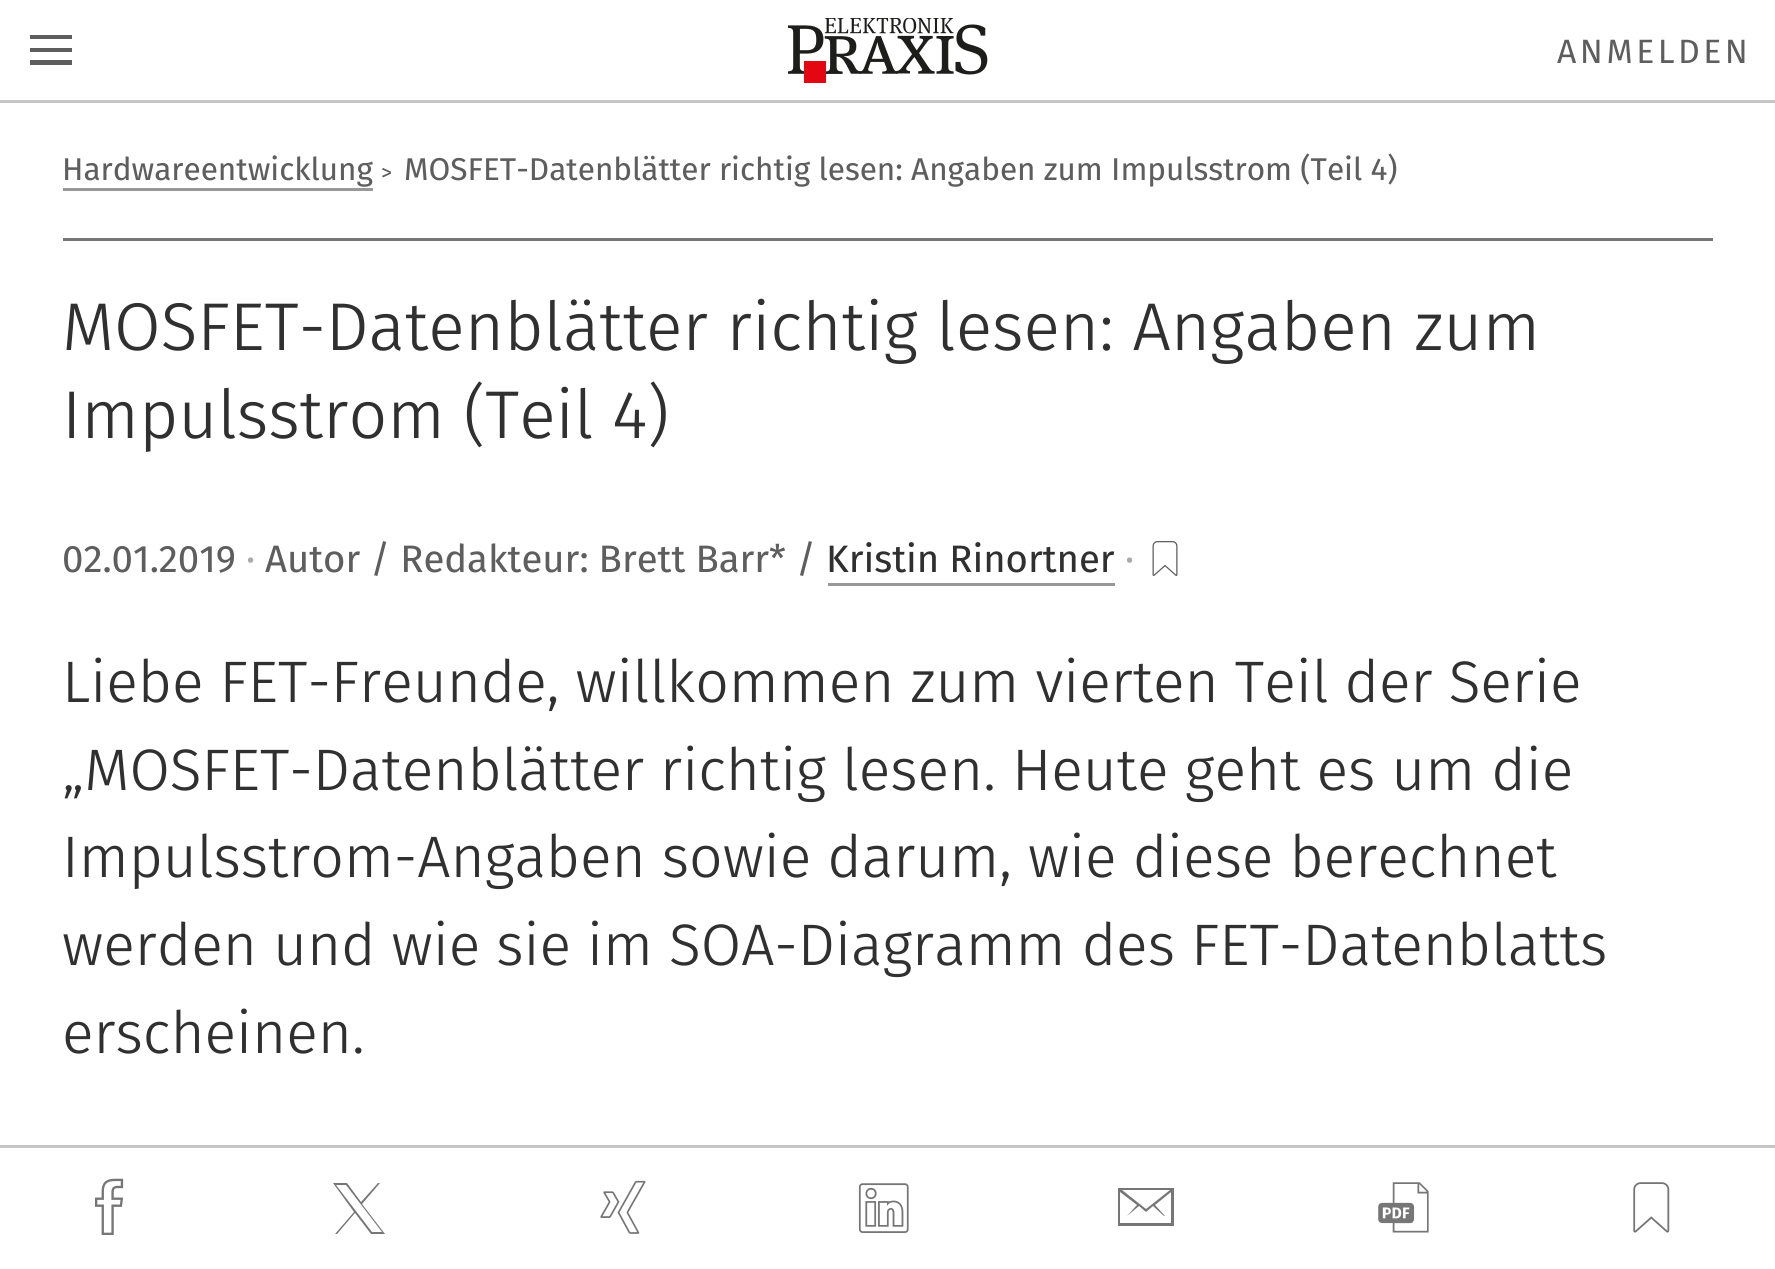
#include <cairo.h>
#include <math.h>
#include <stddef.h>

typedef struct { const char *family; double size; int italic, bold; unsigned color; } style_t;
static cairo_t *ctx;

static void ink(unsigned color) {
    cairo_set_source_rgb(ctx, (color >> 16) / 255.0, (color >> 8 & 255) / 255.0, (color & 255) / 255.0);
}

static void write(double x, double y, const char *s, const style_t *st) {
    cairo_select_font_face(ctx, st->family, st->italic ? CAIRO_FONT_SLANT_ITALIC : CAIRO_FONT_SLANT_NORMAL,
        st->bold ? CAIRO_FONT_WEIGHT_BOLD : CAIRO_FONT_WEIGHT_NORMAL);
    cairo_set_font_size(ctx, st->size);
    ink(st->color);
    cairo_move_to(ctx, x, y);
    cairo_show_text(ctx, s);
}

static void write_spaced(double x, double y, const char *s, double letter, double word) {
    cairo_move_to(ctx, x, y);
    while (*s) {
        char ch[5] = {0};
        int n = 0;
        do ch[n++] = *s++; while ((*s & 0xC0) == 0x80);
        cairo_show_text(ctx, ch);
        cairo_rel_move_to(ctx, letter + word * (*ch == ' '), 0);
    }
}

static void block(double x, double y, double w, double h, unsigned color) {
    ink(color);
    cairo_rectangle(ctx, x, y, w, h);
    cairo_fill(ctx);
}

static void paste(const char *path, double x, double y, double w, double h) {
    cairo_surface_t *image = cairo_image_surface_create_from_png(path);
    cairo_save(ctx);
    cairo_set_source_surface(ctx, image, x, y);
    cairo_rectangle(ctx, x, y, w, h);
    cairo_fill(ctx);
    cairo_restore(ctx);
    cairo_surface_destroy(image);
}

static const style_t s1 = {"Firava", 31.5, 0, 0, 0x5e5e5e};
static const style_t s2 = {"Firava", 22, 0, 0, 0x5e5e5e};
static const style_t s3 = {"Firava Light", 67.5, 0, 0, 0x303030};
static const style_t s4 = {"Firava", 38.25, 0, 0, 0x5e5e5e};
static const style_t s5 = {"Firava", 38.25, 0, 0, 0xababab};
static const style_t s6 = {"Firava", 38.25, 0, 0, 0x303030};
static const style_t s7 = {"Firava Light", 58.5, 0, 0, 0x303030};

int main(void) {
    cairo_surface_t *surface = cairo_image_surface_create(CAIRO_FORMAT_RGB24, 1775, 1269);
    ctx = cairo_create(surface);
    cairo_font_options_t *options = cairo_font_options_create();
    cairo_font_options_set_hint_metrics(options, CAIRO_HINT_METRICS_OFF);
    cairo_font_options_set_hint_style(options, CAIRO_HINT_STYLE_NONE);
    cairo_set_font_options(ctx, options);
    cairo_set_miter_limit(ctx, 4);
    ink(0xffffff);
    cairo_paint(ctx);
    block(0, 100, 1775, 3, 0xc6c6c6);
    ink(0x5e5e5e);
    cairo_new_path(ctx);
    cairo_move_to(ctx, 30, 52);
    cairo_line_to(ctx, 30, 48);
    cairo_line_to(ctx, 72, 48);
    cairo_line_to(ctx, 72, 52);
    cairo_close_path(ctx);
    cairo_move_to(ctx, 30, 39);
    cairo_line_to(ctx, 30, 35);
    cairo_line_to(ctx, 72, 35);
    cairo_line_to(ctx, 72, 39);
    cairo_close_path(ctx);
    cairo_move_to(ctx, 30, 65);
    cairo_line_to(ctx, 30, 60);
    cairo_line_to(ctx, 72, 60);
    cairo_line_to(ctx, 72, 65);
    cairo_close_path(ctx);
    cairo_fill(ctx);
    paste("pic1.png", 788, 18, 200, 65);
    cairo_select_font_face(ctx, "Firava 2", CAIRO_FONT_SLANT_NORMAL, CAIRO_FONT_WEIGHT_NORMAL);
    cairo_set_font_size(ctx, 33.75);
    write_spaced(1557, 63, "ANMELDEN", 3.5, 0);
    block(63, 238, 1650, 3, 0x767676);
    write(62, 180, "Hardwareentwicklung", &s1);
    block(63, 188, 310, 3, 0x989898);
    write(381, 180, ">", &s2);
    write(404, 180, "MOSFET-Datenblätter richtig lesen: Angaben zum Impulsstrom (Teil 4)", &s1);
    write(62, 350, "MOSFET-Datenblätter richtig lesen: Angaben zum", &s3);
    write(62, 438, "Impulsstrom (Teil 4)", &s3);
    write(62, 572, "02.01.2019", &s4);
    write(246, 572, "·", &s5);
    write(265, 572, "Autor / Redakteur: Brett Barr* /", &s4);
    write(826, 572, "Kristin Rinortner", &s6);
    block(828, 583, 287, 3, 0x989898);
    write(1125, 572, "·", &s5);
    paste("pic2.png", 1152, 541, 26, 35);
    write(62, 702, "Liebe FET-Freunde, willkommen zum vierten Teil der Serie", &s7);
    write(62, 790, "„MOSFET-Datenblätter richtig lesen. Heute geht es um die", &s7);
    write(62, 877, "Impulsstrom-Angaben sowie darum, wie diese berechnet", &s7);
    write(62, 965, "werden und wie sie im SOA-Diagramm des FET-Datenblatts", &s7);
    write(62, 1053, "erscheinen.", &s7);
    block(0, 1145, 1775, 3, 0xc6c6c6);
    paste("pic3.png", 95, 1178, 29, 57);
    ink(0x767676);
    cairo_new_path(ctx);
    cairo_move_to(ctx, 335, 1234);
    cairo_line_to(ctx, 337, 1234);
    cairo_line_to(ctx, 355, 1213);
    cairo_line_to(ctx, 371, 1234);
    cairo_line_to(ctx, 385, 1234);
    cairo_line_to(ctx, 362, 1204);
    cairo_line_to(ctx, 380, 1183);
    cairo_line_to(ctx, 378, 1183);
    cairo_line_to(ctx, 361, 1202);
    cairo_line_to(ctx, 347, 1183);
    cairo_line_to(ctx, 333, 1183);
    cairo_line_to(ctx, 354, 1212);
    cairo_close_path(ctx);
    cairo_move_to(ctx, 336, 1185);
    cairo_line_to(ctx, 346, 1185);
    cairo_line_to(ctx, 382, 1232);
    cairo_line_to(ctx, 372, 1232);
    cairo_close_path(ctx);
    cairo_fill(ctx);
    paste("pic4.png", 600, 1180, 46, 54);
    paste("pic5.png", 858, 1183, 51, 50);
    cairo_new_path(ctx);
    cairo_move_to(ctx, 1118, 1188);
    cairo_line_to(ctx, 1174, 1188);
    cairo_line_to(ctx, 1174, 1226);
    cairo_line_to(ctx, 1118, 1226);
    cairo_close_path(ctx);
    cairo_move_to(ctx, 1146, 1209);
    cairo_line_to(ctx, 1170, 1190);
    cairo_line_to(ctx, 1122, 1190);
    cairo_close_path(ctx);
    cairo_move_to(ctx, 1120, 1223);
    cairo_line_to(ctx, 1171, 1223);
    cairo_line_to(ctx, 1171, 1192);
    cairo_line_to(ctx, 1155, 1205);
    cairo_line_to(ctx, 1165, 1216);
    cairo_line_to(ctx, 1164, 1216);
    cairo_line_to(ctx, 1153, 1206);
    cairo_line_to(ctx, 1146, 1212);
    cairo_line_to(ctx, 1139, 1206);
    cairo_line_to(ctx, 1127, 1216);
    cairo_line_to(ctx, 1137, 1205);
    cairo_line_to(ctx, 1120, 1192);
    cairo_close_path(ctx);
    cairo_fill(ctx);
    paste("pic6.png", 1378, 1182, 51, 51);
    paste("pic7.png", 1633, 1182, 37, 51);
    cairo_surface_write_to_png(surface, "screenshot.png");
    cairo_font_options_destroy(options);
    cairo_destroy(ctx);
    cairo_surface_destroy(surface);
    return 0;
}
